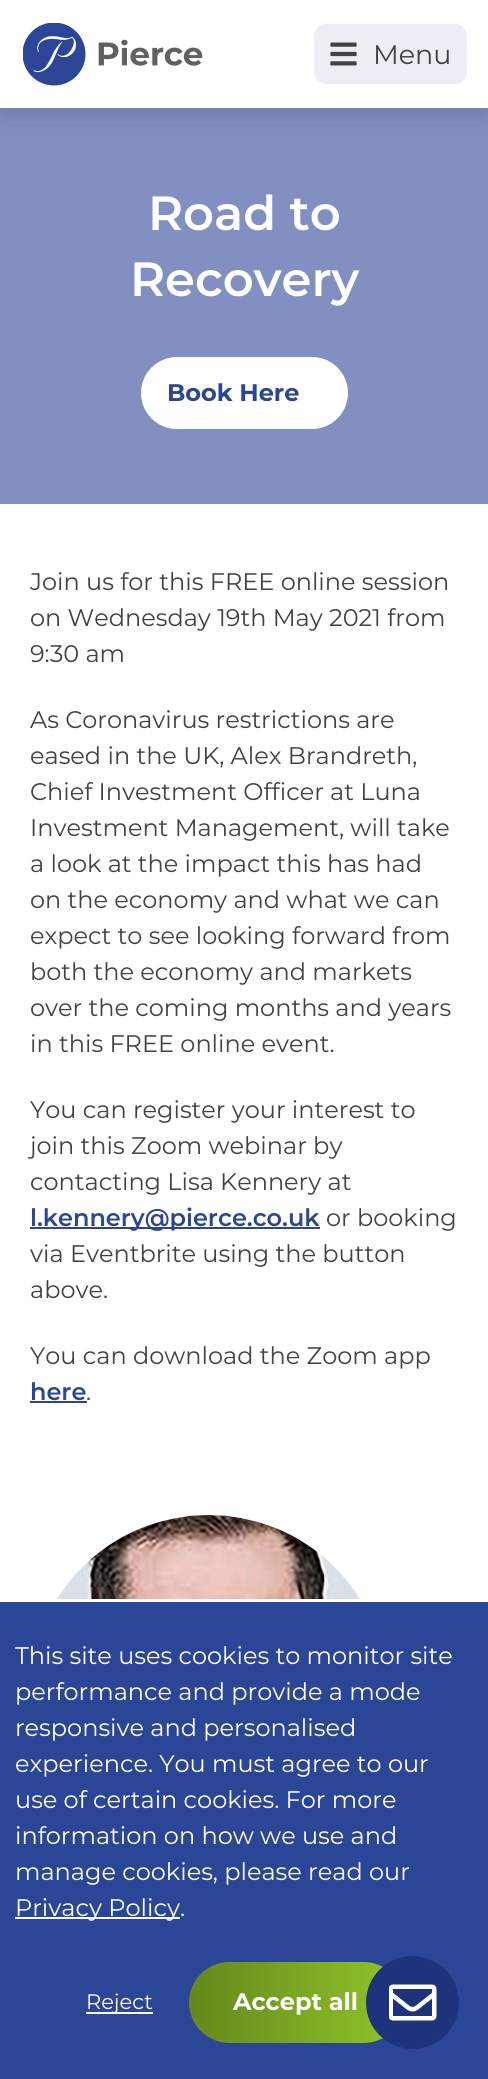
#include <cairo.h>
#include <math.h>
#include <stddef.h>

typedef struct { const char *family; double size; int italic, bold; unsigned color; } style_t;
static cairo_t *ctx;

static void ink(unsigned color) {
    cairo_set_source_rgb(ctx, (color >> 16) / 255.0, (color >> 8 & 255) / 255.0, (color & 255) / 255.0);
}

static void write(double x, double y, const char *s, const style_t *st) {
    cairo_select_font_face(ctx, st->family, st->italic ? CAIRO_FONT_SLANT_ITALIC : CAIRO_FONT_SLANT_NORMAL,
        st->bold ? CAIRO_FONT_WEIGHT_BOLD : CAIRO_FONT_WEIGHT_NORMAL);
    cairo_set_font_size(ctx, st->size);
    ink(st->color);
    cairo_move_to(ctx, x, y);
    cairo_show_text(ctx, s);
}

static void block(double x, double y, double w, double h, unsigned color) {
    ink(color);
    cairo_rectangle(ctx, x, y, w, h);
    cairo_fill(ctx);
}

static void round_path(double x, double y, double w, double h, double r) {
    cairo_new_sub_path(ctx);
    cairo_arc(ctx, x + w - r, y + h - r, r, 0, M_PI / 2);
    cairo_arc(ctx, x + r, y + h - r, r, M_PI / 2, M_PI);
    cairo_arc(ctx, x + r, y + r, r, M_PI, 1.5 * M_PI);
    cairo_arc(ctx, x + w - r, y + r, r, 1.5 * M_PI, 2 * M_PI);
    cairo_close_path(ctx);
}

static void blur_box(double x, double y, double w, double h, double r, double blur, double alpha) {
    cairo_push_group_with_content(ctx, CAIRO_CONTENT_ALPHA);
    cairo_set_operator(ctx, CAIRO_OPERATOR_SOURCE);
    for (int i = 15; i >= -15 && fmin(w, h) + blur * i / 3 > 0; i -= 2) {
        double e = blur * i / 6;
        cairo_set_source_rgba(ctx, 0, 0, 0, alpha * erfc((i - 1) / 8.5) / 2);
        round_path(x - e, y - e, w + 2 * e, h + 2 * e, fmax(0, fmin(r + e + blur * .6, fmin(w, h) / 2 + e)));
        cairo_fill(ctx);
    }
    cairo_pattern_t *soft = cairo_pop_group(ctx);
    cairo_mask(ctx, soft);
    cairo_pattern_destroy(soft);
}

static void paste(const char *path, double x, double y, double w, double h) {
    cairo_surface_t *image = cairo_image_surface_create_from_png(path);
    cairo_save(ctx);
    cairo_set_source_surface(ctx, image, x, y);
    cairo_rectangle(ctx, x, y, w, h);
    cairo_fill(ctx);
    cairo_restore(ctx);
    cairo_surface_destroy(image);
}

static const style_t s1 = {"Montserrat", 27, 0, 0, 0x424242};
static const style_t s2 = {"Montserrat SemiBold", 48, 0, 0, 0xffffff};
static const style_t s3 = {"Montserrat", 24, 0, 1, 0x2c4697};
static const style_t s4 = {"Montserrat", 24, 0, 0, 0x424242};
static const style_t s5 = {"Montserrat SemiBold", 24, 0, 0, 0x2c4697};
static const style_t s6 = {"Montserrat", 24, 0, 0, 0xffffff};
static const style_t s7 = {"Montserrat", 21, 0, 0, 0xffffff};
static const style_t s8 = {"Montserrat", 24, 0, 1, 0xffffff};

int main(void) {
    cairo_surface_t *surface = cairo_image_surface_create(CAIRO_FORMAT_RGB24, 488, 2079);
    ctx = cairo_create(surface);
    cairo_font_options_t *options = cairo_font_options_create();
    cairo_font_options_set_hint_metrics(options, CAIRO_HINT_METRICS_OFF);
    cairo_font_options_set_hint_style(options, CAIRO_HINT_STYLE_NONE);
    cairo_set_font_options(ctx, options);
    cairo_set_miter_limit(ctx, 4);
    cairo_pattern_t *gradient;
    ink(0xffffff);
    cairo_paint(ctx);
    block(0, 108, 488, 396, 0x8190c1);
    ink(0x000000);
    blur_box(2, 9, 486, 105, 0, 15, 0.15);
    block(0, 0, 488, 108, 0xffffff);
    paste("pic1.png", 23, 23, 180, 63);
    ink(0xededf5);
    round_path(314, 24, 153, 60, 12);
    cairo_fill(ctx);
    paste("pic2.png", 330, 42, 27, 24);
    write(373, 64, "Menu", &s1);
    write(148, 230, "Road to", &s2);
    write(130, 296, "Recovery", &s2);
    round_path(142.5, 358.5, 204, 69, 34.5);
    cairo_fill_preserve(ctx);
    cairo_set_line_width(ctx, 3);
    cairo_stroke(ctx);
    write(167, 401, "Book Here", &s3);
    write(30, 590, "Join us for this FREE online session", &s4);
    write(30, 626, "on Wednesday 19th May 2021 from", &s4);
    write(30, 662, "9:30 am", &s4);
    write(30, 728, "As Coronavirus restrictions are", &s4);
    write(30, 764, "eased in the UK, Alex Brandreth,", &s4);
    write(30, 800, "Chief Investment Officer at Luna", &s4);
    write(30, 836, "Investment Management, will take", &s4);
    write(30, 872, "a look at the impact this has had", &s4);
    write(30, 908, "on the economy and what we can", &s4);
    write(30, 944, "expect to see looking forward from", &s4);
    write(30, 980, "both the economy and markets", &s4);
    write(30, 1016, "over the coming months and years", &s4);
    write(30, 1052, "in this FREE online event.", &s4);
    write(30, 1118, "You can register your interest to", &s4);
    write(30, 1154, "join this Zoom webinar by", &s4);
    write(30, 1190, "contacting Lisa Kennery at", &s4);
    block(30, 1227, 290, 2, 0x2c4697);
    write(30, 1226, "l.kennery@pierce.co.uk", &s5);
    write(326, 1226, "or booking", &s4);
    write(30, 1262, "via Eventbrite using the button", &s4);
    write(30, 1298, "above.", &s4);
    write(30, 1364, "You can download the Zoom app", &s4);
    write(30, 1400, "here", &s5);
    block(30, 1401, 57, 2, 0x2c4697);
    write(86, 1400, ".", &s4);
    paste("pic3.png", 57, 1515, 303, 84);
    block(0, 1602, 488, 477, 0x2c4697);
    write(15, 1664, "This site uses cookies to monitor site", &s6);
    write(15, 1700, "performance and provide a mode", &s6);
    write(15, 1736, "responsive and personalised", &s6);
    write(15, 1772, "experience. You must agree to our", &s6);
    write(15, 1808, "use of certain cookies. For more", &s6);
    write(15, 1844, "information on how we use and", &s6);
    write(15, 1880, "manage cookies, please read our", &s6);
    block(15, 1917, 165, 2, 0xffffff);
    write(15, 1916, "Privacy Policy.", &s6);
    block(86, 2012, 67, 2, 0xffffff);
    write(86, 2009, "Reject", &s7);
    gradient = cairo_pattern_create_linear(189, 2003, 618, 2003);
    cairo_pattern_add_color_stop_rgba(gradient, 0, 0.392, 0.533, 0.11, 1);
    cairo_pattern_add_color_stop_rgba(gradient, 0.5, 0.565, 0.773, 0.161, 1);
    cairo_pattern_add_color_stop_rgba(gradient, 1, 0.392, 0.533, 0.11, 1);
    cairo_set_source(ctx, gradient);
    cairo_pattern_destroy(gradient);
    round_path(189, 1962, 215, 81, 40.5);
    cairo_fill(ctx);
    write(233, 2010, "Accept all", &s8);
    ink(0x1d347d);
    cairo_new_path(ctx);
    cairo_arc(ctx, 412.5, 2002.5, 46.5, 0, 2 * M_PI);
    cairo_fill(ctx);
    paste("pic4.png", 389, 1984, 48, 37);
    cairo_surface_write_to_png(surface, "screenshot.png");
    cairo_font_options_destroy(options);
    cairo_destroy(ctx);
    cairo_surface_destroy(surface);
    return 0;
}
